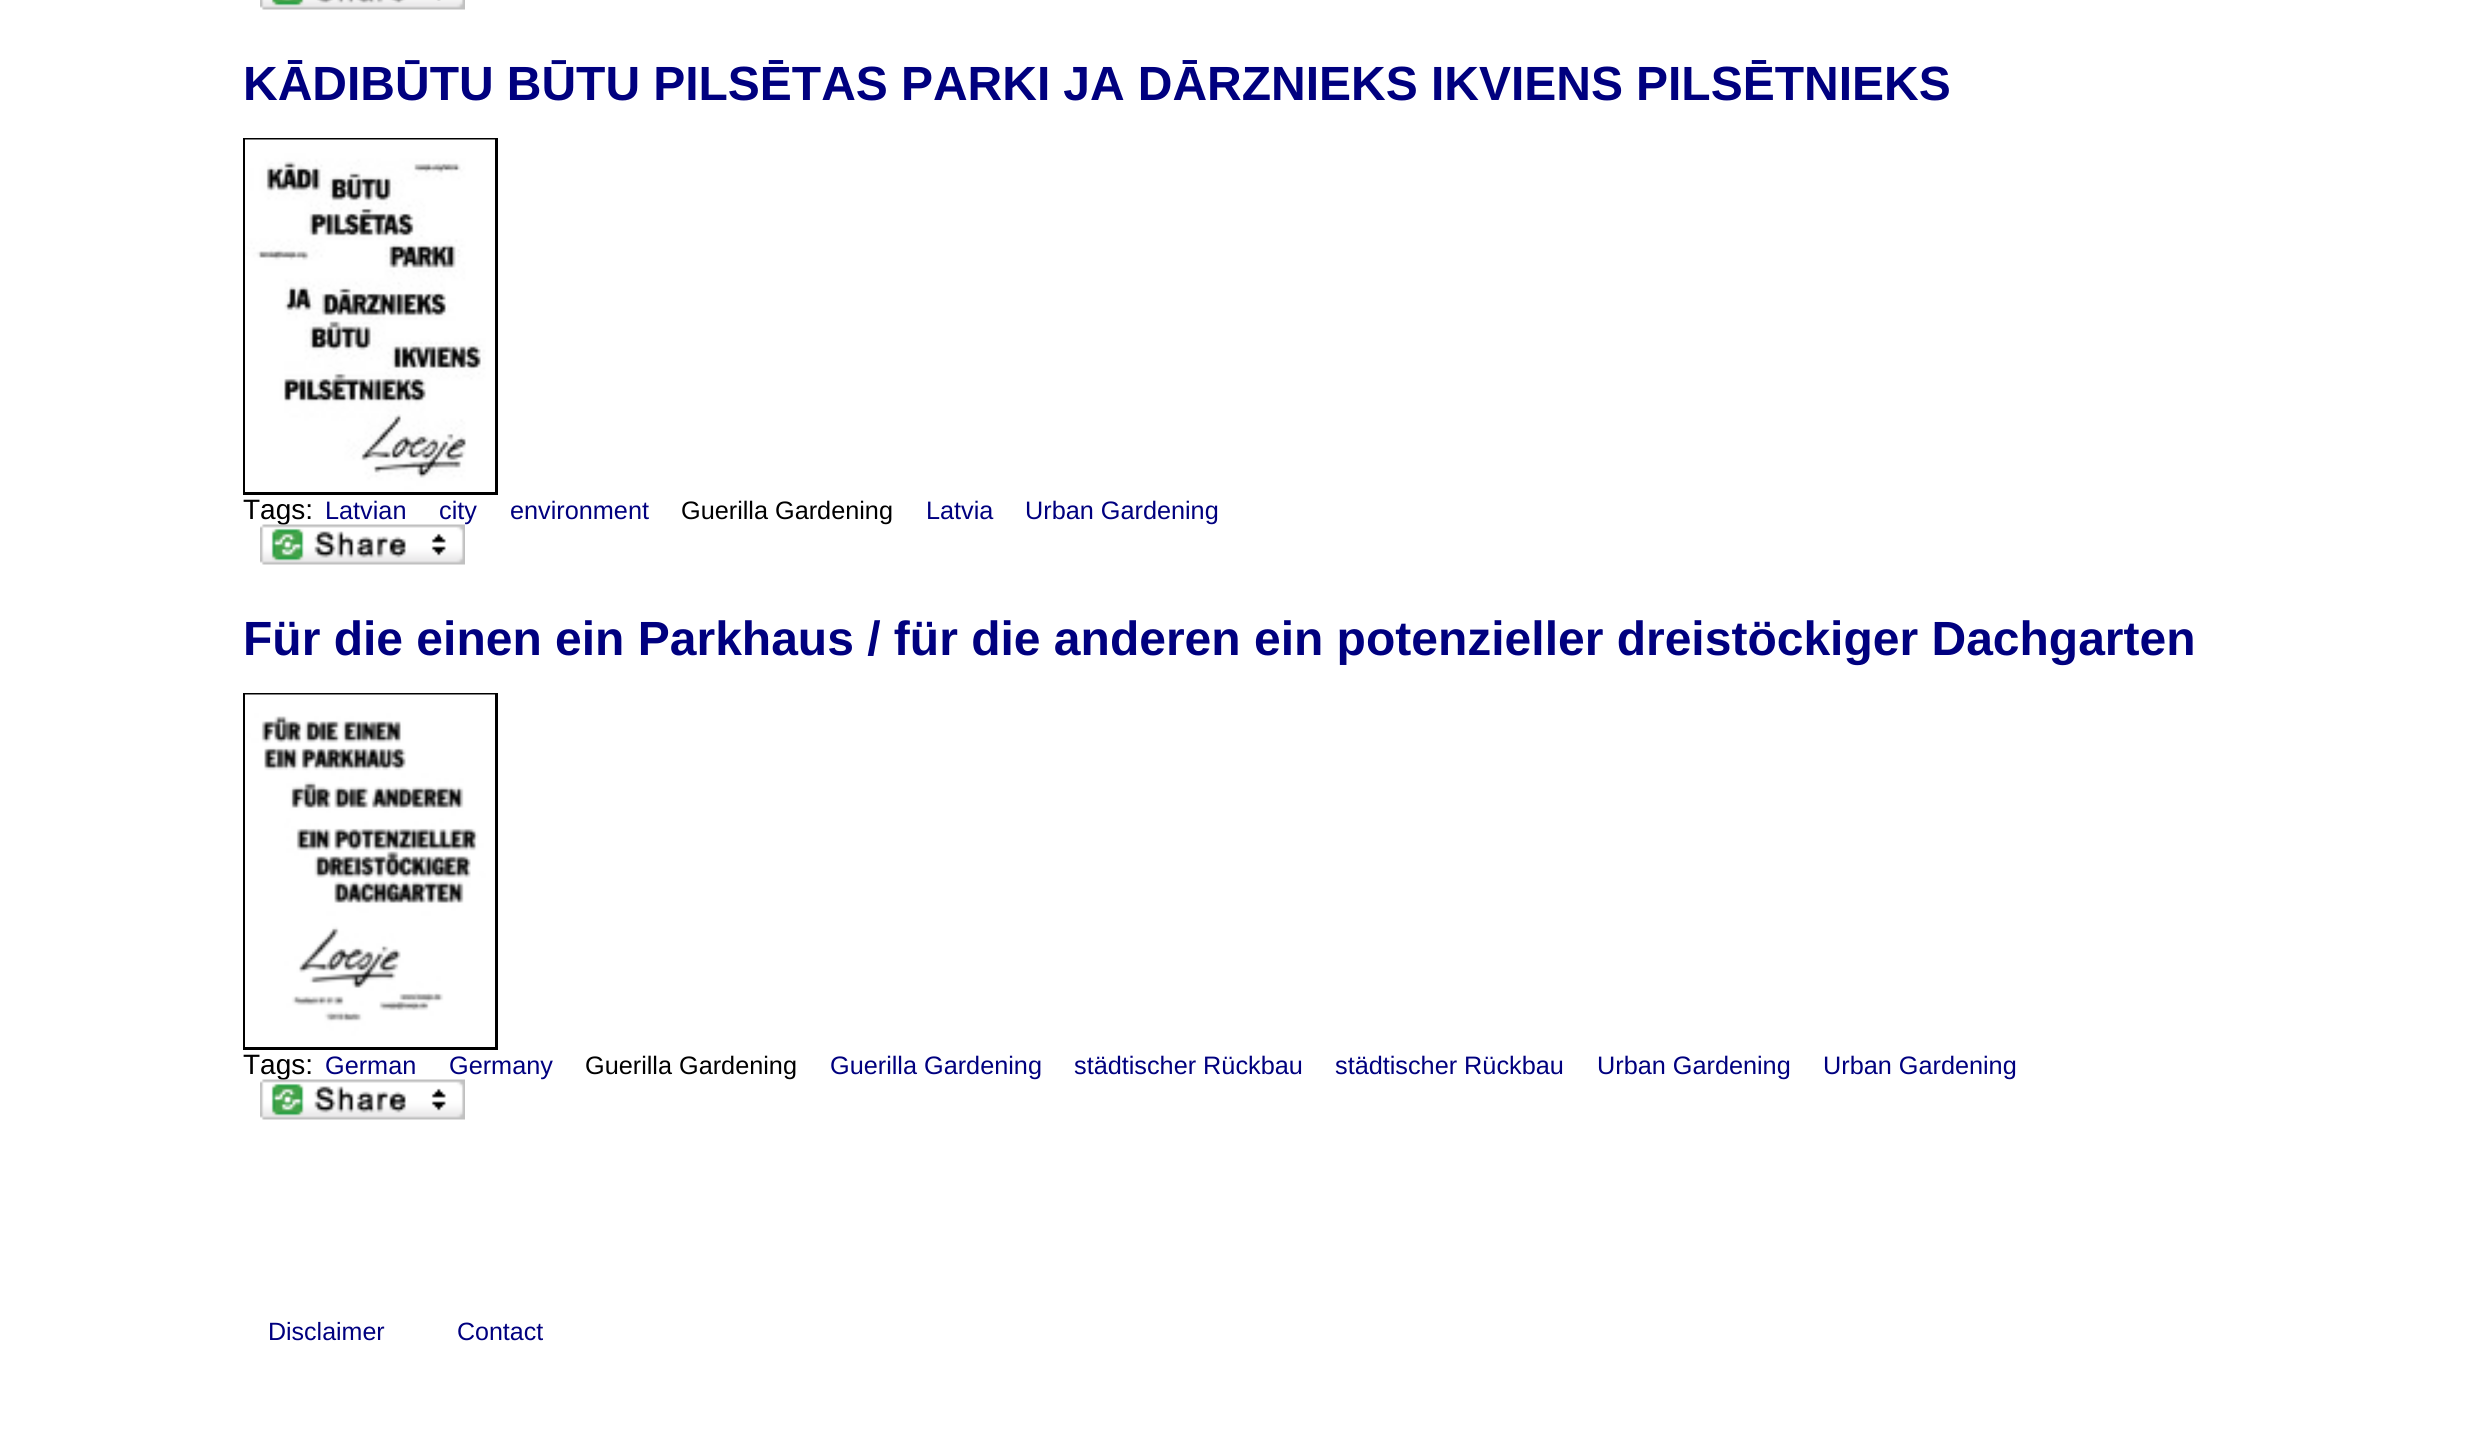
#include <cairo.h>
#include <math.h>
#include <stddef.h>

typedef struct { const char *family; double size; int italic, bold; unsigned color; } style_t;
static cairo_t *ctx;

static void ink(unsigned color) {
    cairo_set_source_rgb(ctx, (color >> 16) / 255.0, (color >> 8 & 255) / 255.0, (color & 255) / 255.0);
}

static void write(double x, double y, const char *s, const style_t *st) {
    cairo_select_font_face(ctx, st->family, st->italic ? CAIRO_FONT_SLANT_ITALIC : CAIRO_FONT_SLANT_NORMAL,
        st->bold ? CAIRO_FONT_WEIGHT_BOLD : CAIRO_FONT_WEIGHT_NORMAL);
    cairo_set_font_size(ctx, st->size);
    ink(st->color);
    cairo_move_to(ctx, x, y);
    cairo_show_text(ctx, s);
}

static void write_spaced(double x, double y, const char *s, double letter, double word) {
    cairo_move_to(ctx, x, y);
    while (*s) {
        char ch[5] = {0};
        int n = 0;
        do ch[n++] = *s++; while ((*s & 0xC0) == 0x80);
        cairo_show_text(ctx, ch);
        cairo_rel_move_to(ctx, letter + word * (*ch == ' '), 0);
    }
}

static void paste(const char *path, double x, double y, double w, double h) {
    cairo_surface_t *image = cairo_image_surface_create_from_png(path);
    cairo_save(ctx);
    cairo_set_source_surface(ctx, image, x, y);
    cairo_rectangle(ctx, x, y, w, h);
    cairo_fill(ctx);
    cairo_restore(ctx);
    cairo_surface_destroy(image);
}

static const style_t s1 = {"Liberation Sans", 28, 0, 0, 0x000000};
static const style_t s2 = {"Liberation Sans", 25.25, 0, 0, 0x00007f};
static const style_t s3 = {"Liberation Sans", 25.25, 0, 0, 0x000000};
static const style_t s4 = {"Liberation Sans", 48, 0, 1, 0x00007f};
static const style_t s5 = {"Liberation Sans", 25, 0, 0, 0x00007f};

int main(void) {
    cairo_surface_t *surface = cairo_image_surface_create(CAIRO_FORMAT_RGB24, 2485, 1433);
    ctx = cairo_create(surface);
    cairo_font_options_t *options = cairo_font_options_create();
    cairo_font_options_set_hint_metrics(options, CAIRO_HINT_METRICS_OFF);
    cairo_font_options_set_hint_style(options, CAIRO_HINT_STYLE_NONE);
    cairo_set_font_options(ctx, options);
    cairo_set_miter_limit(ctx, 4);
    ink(0xffffff);
    cairo_paint(ctx);
    paste("pic1.png", 260, 0, 205, 10);
    cairo_select_font_face(ctx, "Liberation Sans", CAIRO_FONT_SLANT_NORMAL, CAIRO_FONT_WEIGHT_BOLD);
    cairo_set_font_size(ctx, 48);
    ink(0x00007f);
    write_spaced(243, 100, "KĀDIBŪTU BŪTU PILSĒTAS PARKI JA DĀRZNIEKS IKVIENS PILSĒTNIEKS", 0, -0.25);
    cairo_rectangle(ctx, 244.5, 139.5, 252, 354);
    ink(0x000000);
    cairo_set_line_width(ctx, 3);
    cairo_stroke(ctx);
    paste("pic2.png", 245, 139, 250, 353);
    write(243, 519, "Tags:", &s1);
    write(325, 519, "Latvian", &s2);
    write(439, 519, "city", &s2);
    write(510, 519, "environment", &s2);
    write(681, 519, "Guerilla Gardening", &s3);
    write(926, 519, "Latvia", &s2);
    write(1025, 519, "Urban Gardening", &s2);
    paste("pic3.png", 260, 524, 205, 41);
    write(243, 655, "Für die einen ein Parkhaus / für die anderen ein potenzieller dreistöckiger Dachgarten", &s4);
    cairo_rectangle(ctx, 244.5, 694.5, 252, 354);
    ink(0x000000);
    cairo_stroke(ctx);
    paste("pic4.png", 245, 694, 250, 353);
    write(243, 1074, "Tags:", &s1);
    write(325, 1074, "German", &s2);
    write(449, 1074, "Germany", &s2);
    write(585, 1074, "Guerilla Gardening", &s3);
    write(830, 1074, "Guerilla Gardening", &s2);
    write(1074, 1074, "städtischer Rückbau", &s2);
    write(1335, 1074, "städtischer Rückbau", &s2);
    write(1597, 1074, "Urban Gardening", &s2);
    write(1823, 1074, "Urban Gardening", &s2);
    paste("pic3.png", 260, 1079, 205, 41);
    write(268, 1340, "Disclaimer", &s5);
    write(457, 1340, "Contact", &s5);
    cairo_surface_write_to_png(surface, "screenshot.png");
    cairo_font_options_destroy(options);
    cairo_destroy(ctx);
    cairo_surface_destroy(surface);
    return 0;
}
